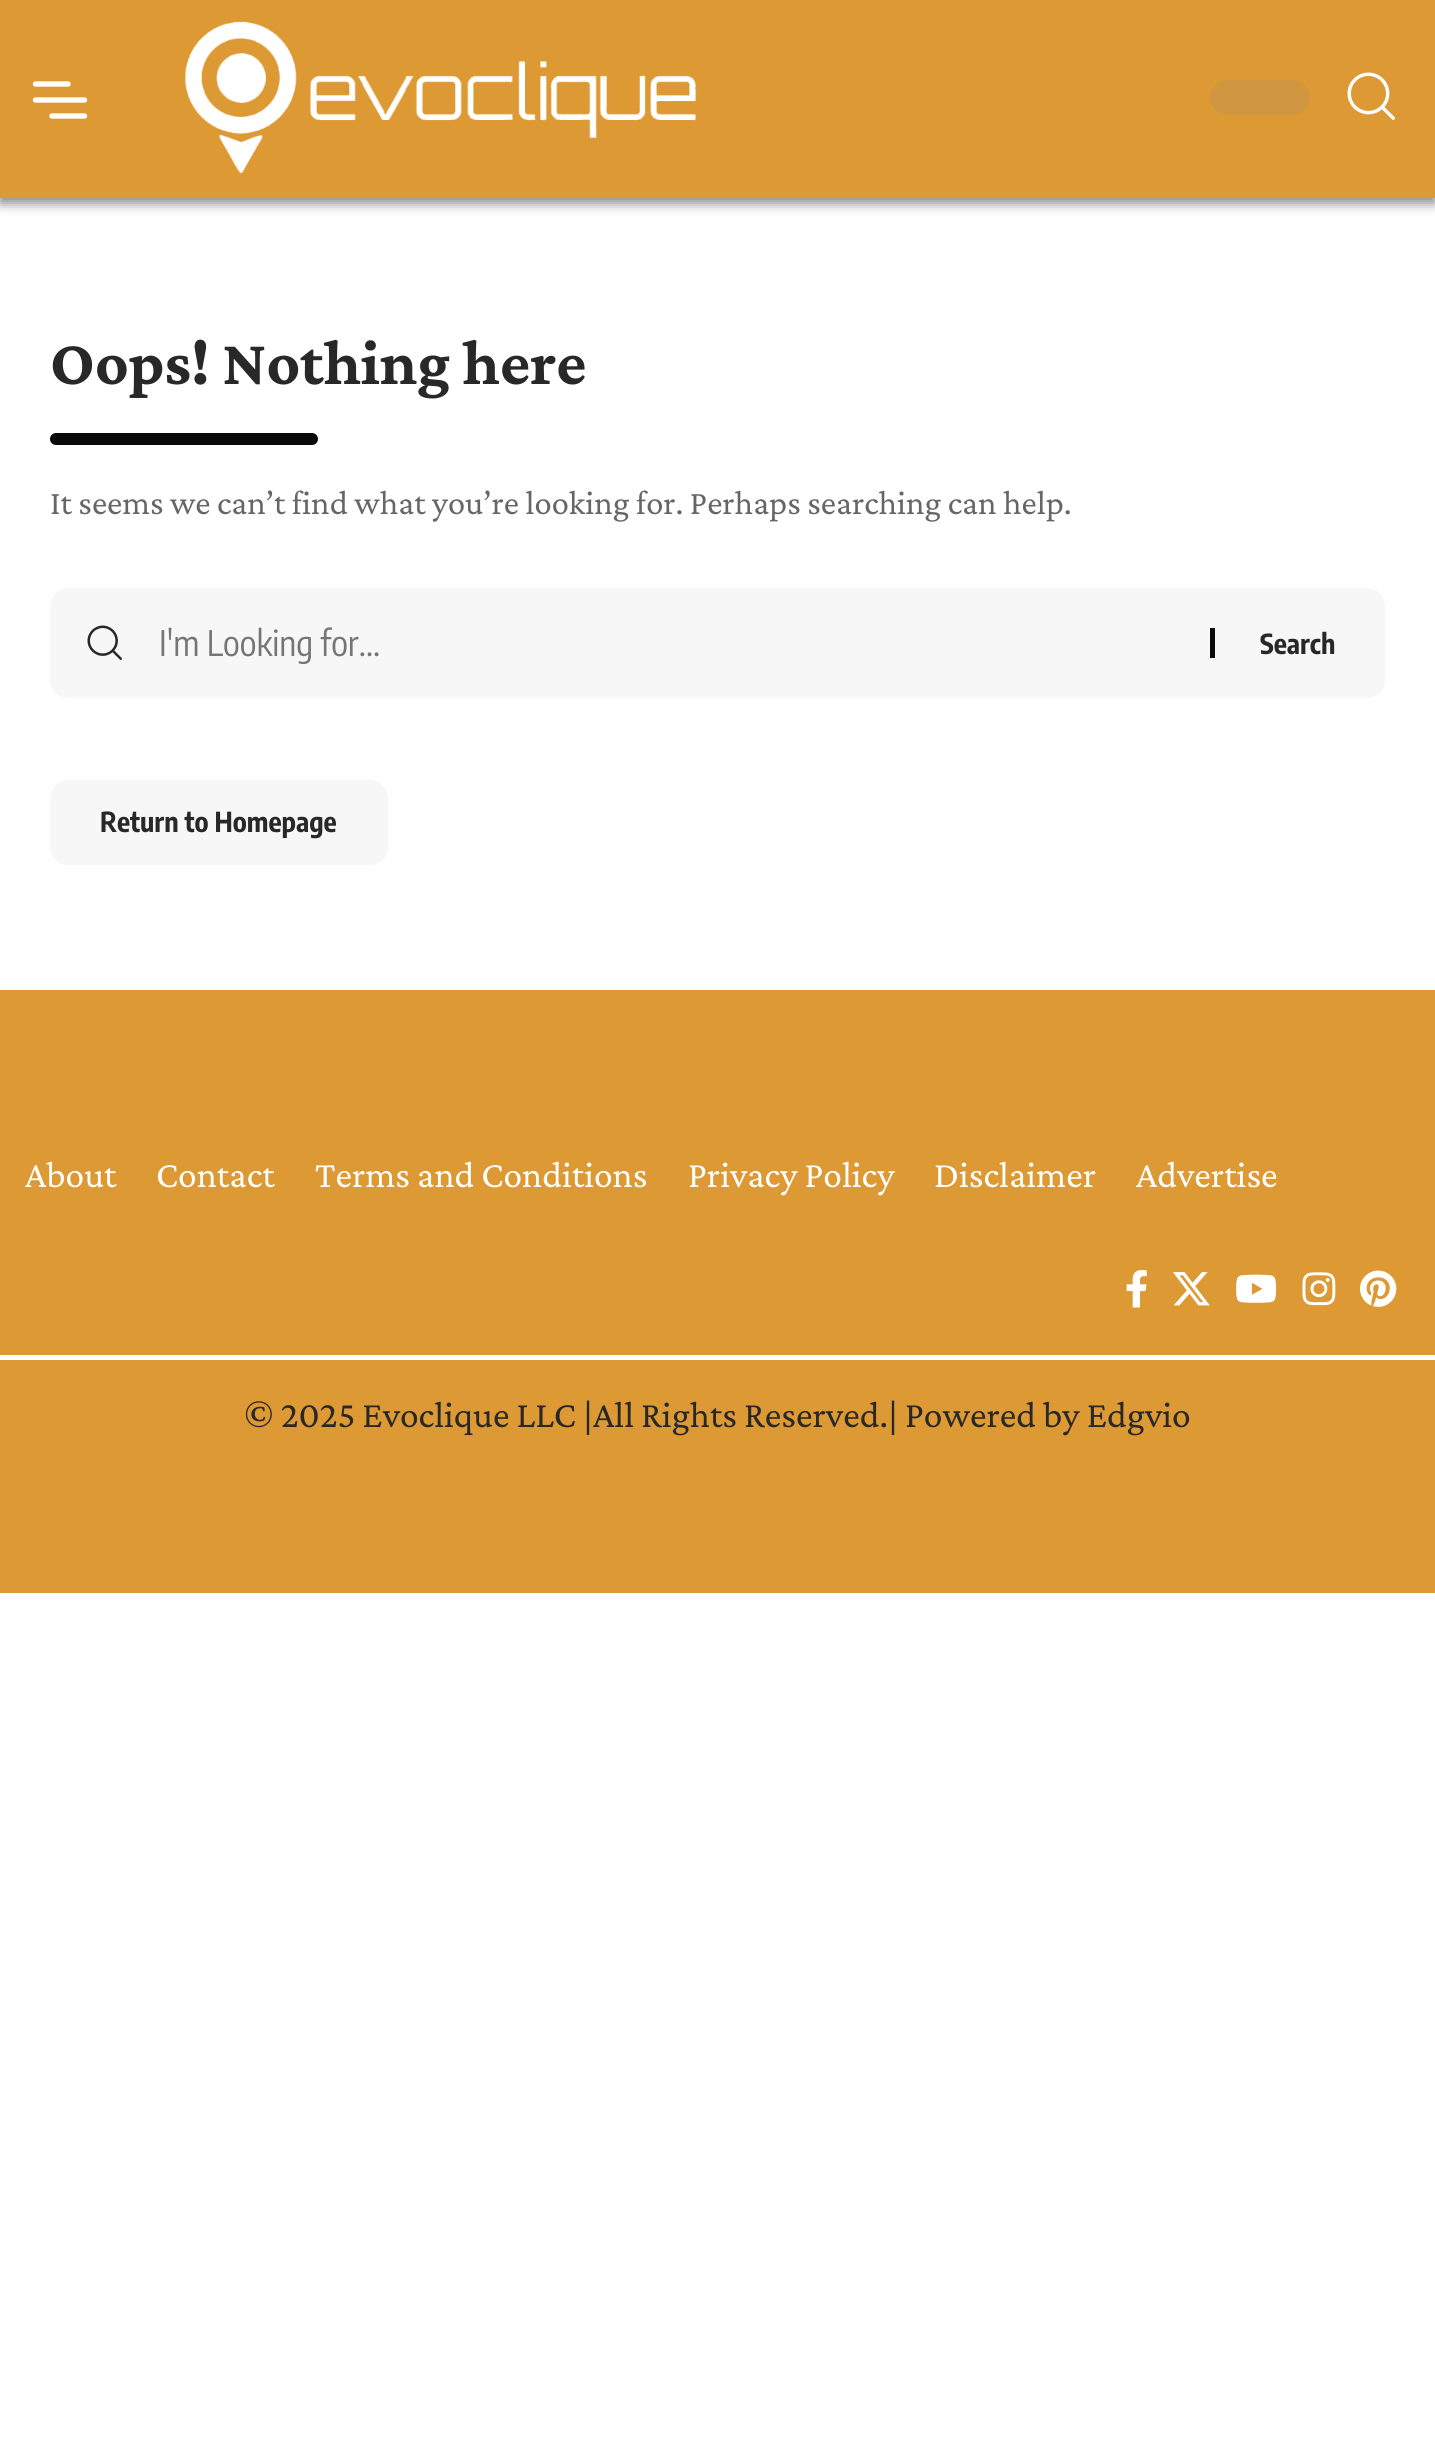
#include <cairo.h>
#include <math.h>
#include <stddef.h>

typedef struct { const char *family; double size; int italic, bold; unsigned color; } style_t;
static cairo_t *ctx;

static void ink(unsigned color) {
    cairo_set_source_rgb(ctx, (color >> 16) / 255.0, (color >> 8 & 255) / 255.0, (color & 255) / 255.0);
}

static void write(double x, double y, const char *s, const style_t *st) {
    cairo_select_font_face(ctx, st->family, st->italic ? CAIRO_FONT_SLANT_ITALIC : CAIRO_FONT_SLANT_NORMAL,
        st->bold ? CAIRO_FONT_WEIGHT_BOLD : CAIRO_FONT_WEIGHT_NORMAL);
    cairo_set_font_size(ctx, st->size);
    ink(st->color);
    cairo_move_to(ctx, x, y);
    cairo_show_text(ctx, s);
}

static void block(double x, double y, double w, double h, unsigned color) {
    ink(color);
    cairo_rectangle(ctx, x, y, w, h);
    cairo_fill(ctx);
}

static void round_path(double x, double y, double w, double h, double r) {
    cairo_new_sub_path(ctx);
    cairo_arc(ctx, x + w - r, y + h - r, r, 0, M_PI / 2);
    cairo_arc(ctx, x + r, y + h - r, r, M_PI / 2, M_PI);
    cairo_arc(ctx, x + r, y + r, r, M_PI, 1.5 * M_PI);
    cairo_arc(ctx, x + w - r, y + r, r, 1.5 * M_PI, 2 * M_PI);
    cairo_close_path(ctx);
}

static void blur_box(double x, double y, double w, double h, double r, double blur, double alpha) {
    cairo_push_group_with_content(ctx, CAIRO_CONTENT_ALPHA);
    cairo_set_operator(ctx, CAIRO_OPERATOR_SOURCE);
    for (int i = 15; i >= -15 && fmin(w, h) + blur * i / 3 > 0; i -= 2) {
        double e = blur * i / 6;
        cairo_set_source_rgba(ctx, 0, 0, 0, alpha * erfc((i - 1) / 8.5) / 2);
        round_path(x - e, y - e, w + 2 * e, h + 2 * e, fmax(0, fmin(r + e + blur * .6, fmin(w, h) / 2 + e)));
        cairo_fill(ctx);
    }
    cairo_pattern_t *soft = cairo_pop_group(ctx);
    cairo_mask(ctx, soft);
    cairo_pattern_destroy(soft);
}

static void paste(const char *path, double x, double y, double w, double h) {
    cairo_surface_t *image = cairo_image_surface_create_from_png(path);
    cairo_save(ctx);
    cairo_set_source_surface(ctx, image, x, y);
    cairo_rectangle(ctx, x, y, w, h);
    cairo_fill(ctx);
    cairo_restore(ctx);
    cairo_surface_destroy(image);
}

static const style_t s1 = {"Crimson Pro", 65, 0, 1, 0x282828};
static const style_t s2 = {"Crimson Pro", 34.5, 0, 0, 0x666666};
static const style_t s3 = {"Encode Sans Condensed", 35, 0, 0, 0x757575};
static const style_t s4 = {"Encode Sans Condensed", 27.5, 0, 1, 0x282828};
static const style_t s5 = {"Crimson Pro", 37.5, 0, 0, 0xffffff};
static const style_t s6 = {"Crimson Pro", 37.5, 0, 0, 0x282828};

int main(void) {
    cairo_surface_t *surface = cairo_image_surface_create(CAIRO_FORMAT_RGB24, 1435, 2463);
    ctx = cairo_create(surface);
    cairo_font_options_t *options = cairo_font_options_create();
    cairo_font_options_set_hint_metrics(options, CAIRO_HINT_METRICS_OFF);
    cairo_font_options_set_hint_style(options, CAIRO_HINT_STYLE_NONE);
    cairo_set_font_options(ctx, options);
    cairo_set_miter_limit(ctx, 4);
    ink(0xffffff);
    cairo_paint(ctx);
    ink(0x000000);
    blur_box(0, 5, 1435, 198, 0, 6, 0.5);
    block(0, 0, 1435, 198, 0xdd9933);
    cairo_new_path(ctx);
    cairo_move_to(ctx, 35.5, 100);
    cairo_line_to(ctx, 84.5, 100);
    cairo_move_to(ctx, 52, 116);
    cairo_line_to(ctx, 84.5, 116);
    cairo_move_to(ctx, 35.5, 84);
    cairo_line_to(ctx, 68, 84);
    ink(0xffffff);
    cairo_set_line_width(ctx, 5.4);
    cairo_set_line_cap(ctx, CAIRO_LINE_CAP_ROUND);
    cairo_set_line_join(ctx, CAIRO_LINE_JOIN_ROUND);
    cairo_stroke(ctx);
    paste("pic1.png", 184, 21, 513, 153);
    ink(0xd09640);
    round_path(1210, 80, 100, 35, 17.5);
    cairo_fill(ctx);
    paste("pic2.png", 1347, 72, 48, 48);
    write(50, 384, "Oops! Nothing here", &s1);
    ink(0x0a0a0a);
    round_path(50, 433, 268, 12, 6);
    cairo_fill(ctx);
    write(50, 514, "It seems we can’t find what you’re looking for. Perhaps searching can help.", &s2);
    ink(0xf7f7f7);
    round_path(50, 588, 1335, 110, 18);
    cairo_fill(ctx);
    paste("pic3.png", 87, 625, 35, 35);
    write(159, 656, "I'm Looking for...", &s3);
    block(1210, 628, 5, 30, 0x0a0a0a);
    write(1260, 654, "Search", &s4);
    ink(0xf7f7f7);
    round_path(50, 780, 338, 85, 18);
    cairo_fill(ctx);
    write(100, 832, "Return to Homepage", &s4);
    block(0, 990, 1435, 603, 0xdd9933);
    write(25, 1187, "About", &s5);
    write(156, 1187, "Contact", &s5);
    write(315, 1187, "Terms and Conditions", &s5);
    write(688, 1187, "Privacy Policy", &s5);
    write(934, 1187, "Disclaimer", &s5);
    write(1136, 1187, "Advertise", &s5);
    paste("pic4.png", 1126, 1270, 21, 38);
    paste("pic5.png", 1173, 1272, 37, 34);
    paste("pic6.png", 1236, 1274, 41, 29);
    paste("pic7.png", 1302, 1272, 34, 34);
    paste("pic8.png", 1360, 1270, 37, 37);
    block(0, 1355, 1435, 5, 0xffffff);
    write(244, 1427, "© 2025 Evoclique LLC |All Rights Reserved.| Powered by Edgvio", &s6);
    cairo_surface_write_to_png(surface, "screenshot.png");
    cairo_font_options_destroy(options);
    cairo_destroy(ctx);
    cairo_surface_destroy(surface);
    return 0;
}
